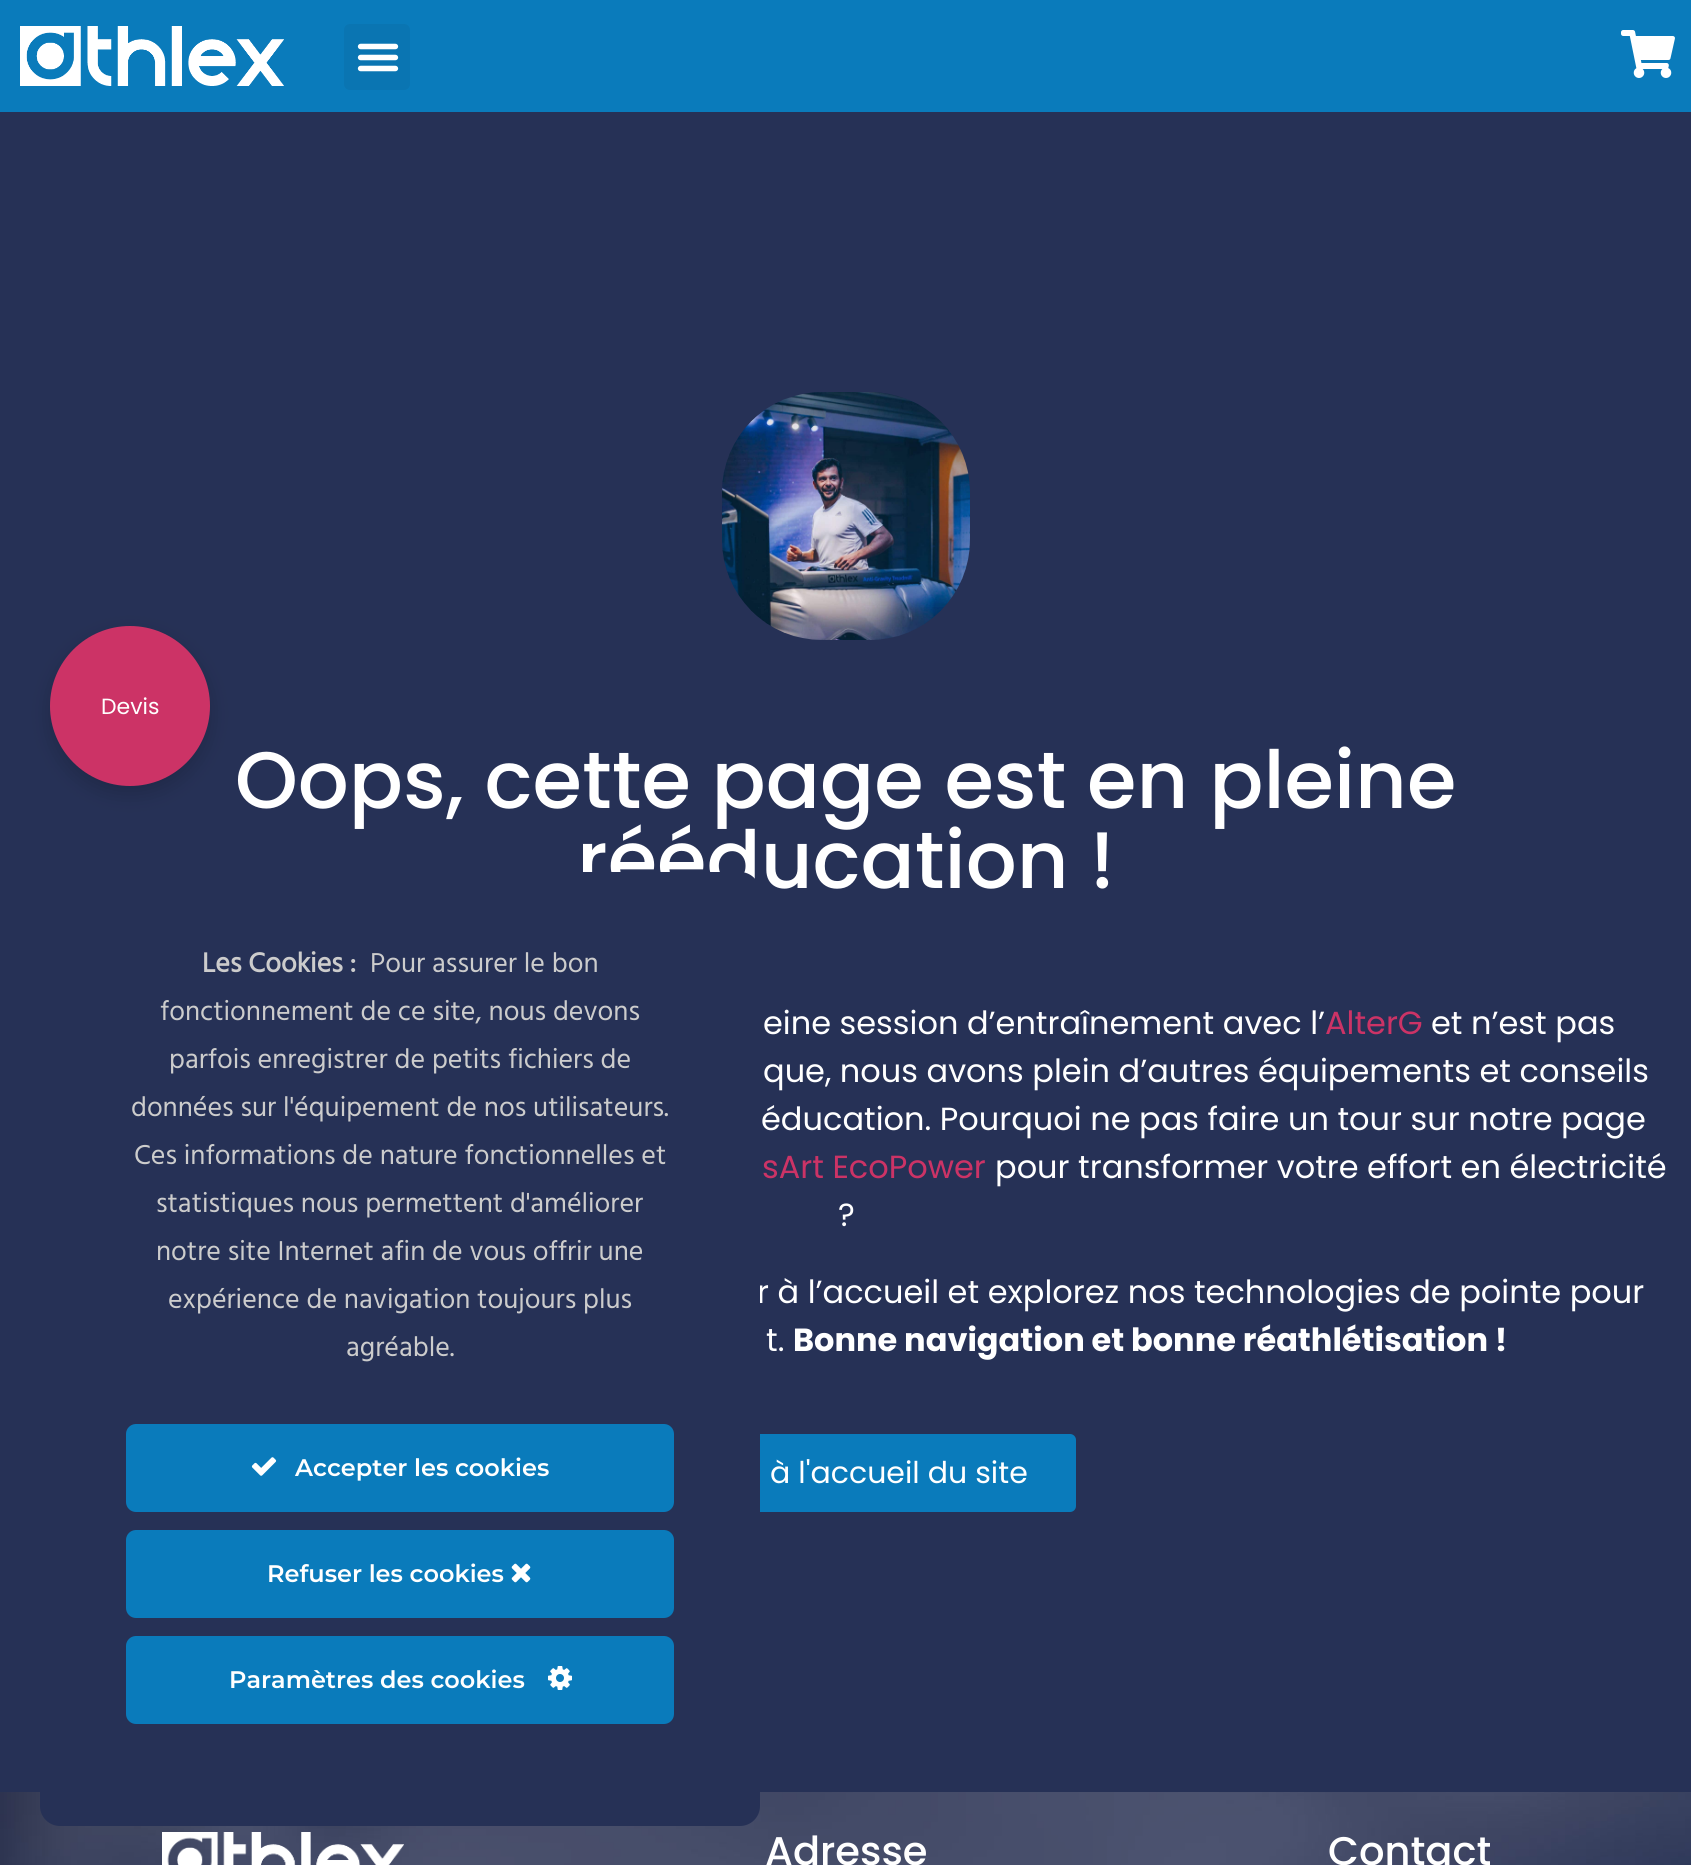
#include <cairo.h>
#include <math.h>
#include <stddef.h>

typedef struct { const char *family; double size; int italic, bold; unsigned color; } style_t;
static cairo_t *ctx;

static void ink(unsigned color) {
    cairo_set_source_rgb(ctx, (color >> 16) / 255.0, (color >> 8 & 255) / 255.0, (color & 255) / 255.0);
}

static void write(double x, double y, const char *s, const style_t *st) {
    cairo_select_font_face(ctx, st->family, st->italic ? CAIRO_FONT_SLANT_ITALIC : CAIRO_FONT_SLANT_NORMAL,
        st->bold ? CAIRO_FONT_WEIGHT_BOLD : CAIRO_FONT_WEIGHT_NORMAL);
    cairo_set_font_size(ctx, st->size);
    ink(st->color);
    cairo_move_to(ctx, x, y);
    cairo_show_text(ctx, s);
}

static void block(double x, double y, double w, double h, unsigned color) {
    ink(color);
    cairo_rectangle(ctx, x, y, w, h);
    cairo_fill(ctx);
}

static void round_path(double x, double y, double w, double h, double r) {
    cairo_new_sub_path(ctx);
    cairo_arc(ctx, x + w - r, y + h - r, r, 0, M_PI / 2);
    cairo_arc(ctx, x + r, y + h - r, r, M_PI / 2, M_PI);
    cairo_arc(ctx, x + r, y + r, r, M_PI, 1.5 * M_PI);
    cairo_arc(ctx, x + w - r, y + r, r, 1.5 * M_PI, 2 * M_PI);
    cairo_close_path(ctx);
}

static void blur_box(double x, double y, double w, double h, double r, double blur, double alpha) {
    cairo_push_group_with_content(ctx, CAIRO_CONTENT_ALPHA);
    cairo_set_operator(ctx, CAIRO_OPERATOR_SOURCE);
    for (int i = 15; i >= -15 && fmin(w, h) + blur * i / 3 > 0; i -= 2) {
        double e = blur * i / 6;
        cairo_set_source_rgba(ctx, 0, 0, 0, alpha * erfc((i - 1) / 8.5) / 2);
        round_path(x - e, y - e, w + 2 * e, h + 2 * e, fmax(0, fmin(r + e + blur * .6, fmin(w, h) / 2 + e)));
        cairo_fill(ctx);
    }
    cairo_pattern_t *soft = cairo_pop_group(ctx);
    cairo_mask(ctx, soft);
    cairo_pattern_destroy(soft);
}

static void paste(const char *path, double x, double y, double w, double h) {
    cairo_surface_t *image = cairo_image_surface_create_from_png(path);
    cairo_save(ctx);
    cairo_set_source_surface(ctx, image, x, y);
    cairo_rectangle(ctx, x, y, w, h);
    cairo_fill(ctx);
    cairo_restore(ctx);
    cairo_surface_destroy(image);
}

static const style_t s1 = {"Poppins", 22, 0, 0, 0xffffff};
static const style_t s2 = {"Poppins Medium", 80, 0, 0, 0xffffff};
static const style_t s3 = {"Poppins", 32, 0, 0, 0xffffff};
static const style_t s4 = {"Poppins", 32, 0, 0, 0xcc3366};
static const style_t s5 = {"Poppins", 32, 0, 1, 0xffffff};
static const style_t s6 = {"Poppins", 30, 0, 0, 0xffffff};
static const style_t s7 = {"Hind", 28, 0, 1, 0xcccccc};
static const style_t s8 = {"Hind", 28, 0, 0, 0xcccccc};
static const style_t s9 = {"Montserrat SemiBold", 24, 0, 0, 0xffffff};
static const style_t s10 = {"Poppins Medium", 40, 0, 0, 0xffffff};

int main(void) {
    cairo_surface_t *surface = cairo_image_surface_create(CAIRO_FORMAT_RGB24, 1691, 1865);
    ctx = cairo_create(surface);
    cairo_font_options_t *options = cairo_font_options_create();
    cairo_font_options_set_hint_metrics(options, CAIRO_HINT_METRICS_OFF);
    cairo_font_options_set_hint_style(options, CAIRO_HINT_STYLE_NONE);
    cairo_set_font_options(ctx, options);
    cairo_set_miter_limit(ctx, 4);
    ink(0x0a7bbb);
    cairo_paint(ctx);
    paste("pic1.png", 20, 26, 264, 60);
    ink(0x0a75b2);
    round_path(344, 24, 66, 66, 6);
    cairo_fill(ctx);
    paste("pic2.png", 357, 43, 42, 29);
    paste("pic3.png", 1621, 30, 54, 48);
    block(0, 112, 1691, 1680, 0x263156);
    ink(0x000000);
    blur_box(50, 634, 160, 160, 80, 10, 0.17);
    ink(0xcc3366);
    cairo_arc(ctx, 130, 706, 80, 0, 2 * M_PI);
    cairo_fill(ctx);
    write(101, 714, "Devis", &s1);
    paste("pic4.png", 722, 392, 248, 248);
    write(235, 808, "Oops, cette page est en pleine", &s2);
    write(577, 888, "rééducation !", &s2);
    write(763, 1034, "eine session d’entraînement avec l’", &s3);
    write(1325, 1034, "AlterG", &s4);
    write(1431, 1034, "et n’est pas", &s3);
    write(763, 1082, "que, nous avons plein d’autres équipements et conseils", &s3);
    write(761, 1130, "éducation. Pourquoi ne pas faire un tour sur notre page", &s3);
    write(762, 1178, "sArt EcoPower", &s4);
    write(995, 1178, "pour transformer votre effort en électricité", &s3);
    write(838, 1226, "?", &s3);
    write(757, 1303, "r à l’accueil et explorez nos technologies de pointe pour", &s3);
    write(766, 1351, "t.", &s3);
    write(793, 1351, "Bonne navigation et bonne réathlétisation !", &s5);
    ink(0x0a7bbb);
    round_path(616, 1434, 460, 78, 6);
    cairo_fill(ctx);
    write(770, 1483, "à l'accueil du site", &s6);
    paste("pic8.png", 0, 1792, 1691, 73);
    ink(0x263156);
    round_path(40, 872, 720, 954, 20);
    cairo_fill(ctx);
    write(202, 972, "Les Cookies :", &s7);
    write(370, 972, "Pour assurer le bon", &s8);
    write(160, 1020, "fonctionnement de ce site, nous devons", &s8);
    write(169, 1068, "parfois enregistrer de petits fichiers de", &s8);
    write(131, 1116, "données sur l'équipement de nos utilisateurs.", &s8);
    write(134, 1164, "Ces informations de nature fonctionnelles et", &s8);
    write(156, 1212, "statistiques nous permettent d'améliorer", &s8);
    write(156, 1260, "notre site Internet afin de vous offrir une", &s8);
    write(168, 1308, "expérience de navigation toujours plus", &s8);
    write(346, 1356, "agréable.", &s8);
    ink(0x0a7bbb);
    round_path(127, 1425, 546, 86, 9);
    cairo_fill_preserve(ctx);
    cairo_stroke(ctx);
    paste("pic5.png", 251, 1457, 26, 19);
    write(295, 1476, "Accepter les cookies", &s9);
    ink(0x0a7bbb);
    round_path(127, 1531, 546, 86, 9);
    cairo_fill_preserve(ctx);
    cairo_stroke(ctx);
    write(267, 1582, "Refuser les cookies", &s9);
    paste("pic6.png", 511, 1563, 20, 20);
    ink(0x0a7bbb);
    round_path(127, 1637, 546, 86, 9);
    cairo_fill_preserve(ctx);
    cairo_stroke(ctx);
    write(229, 1688, "Paramètres des cookies", &s9);
    paste("pic7.png", 548, 1666, 24, 24);
    paste("pic9.png", 162, 1832, 242, 33);
    write(765, 1865, "Adresse", &s10);
    write(1328, 1865, "Contact", &s10);
    cairo_surface_write_to_png(surface, "screenshot.png");
    cairo_font_options_destroy(options);
    cairo_destroy(ctx);
    cairo_surface_destroy(surface);
    return 0;
}
